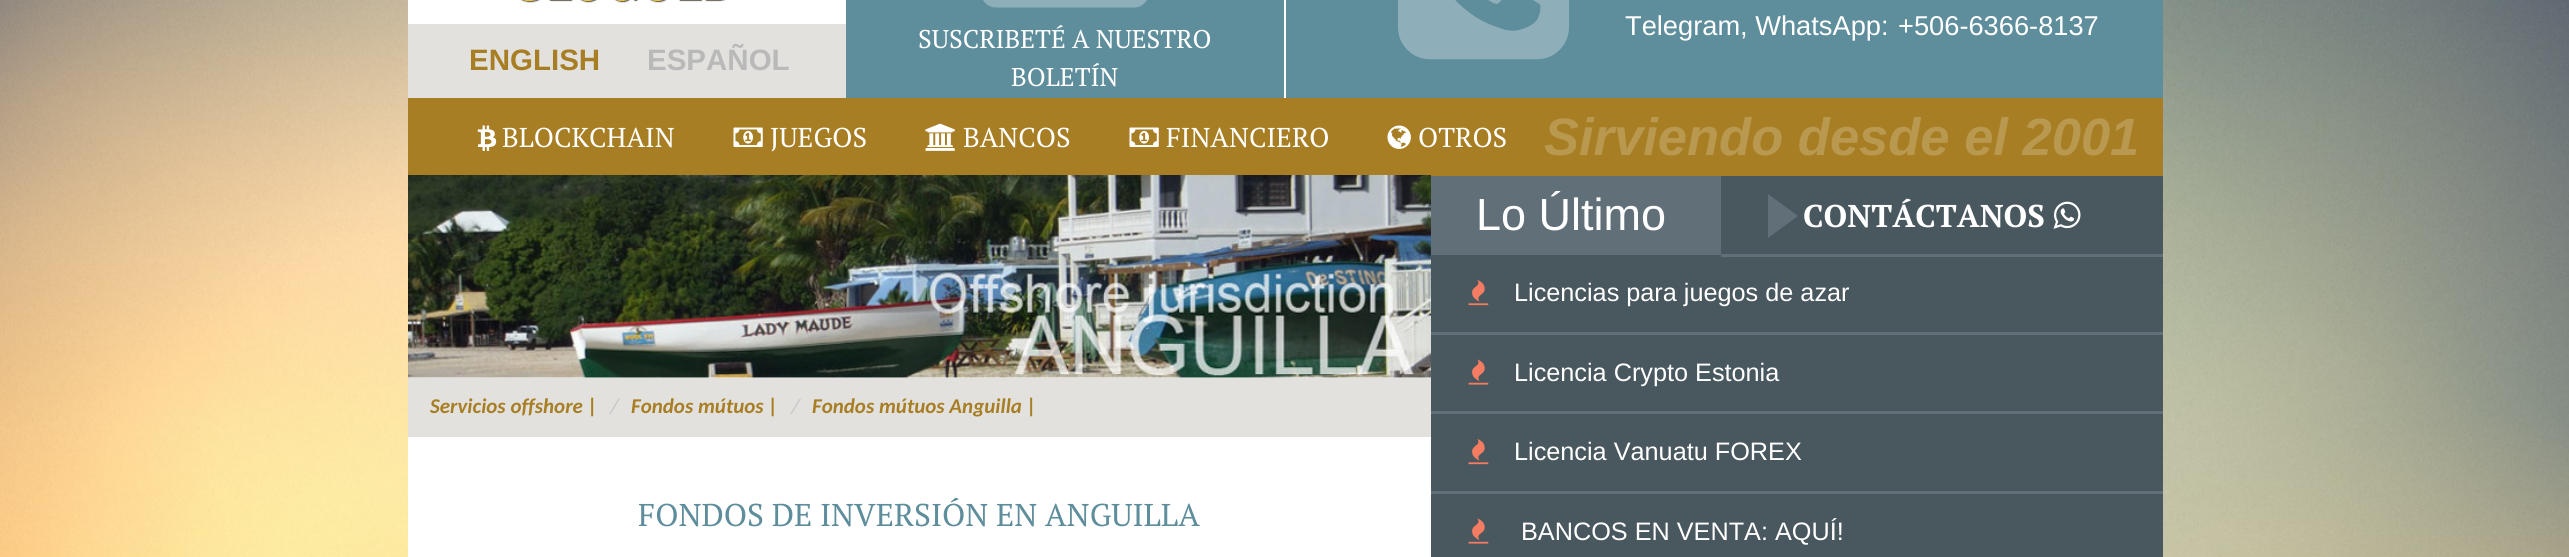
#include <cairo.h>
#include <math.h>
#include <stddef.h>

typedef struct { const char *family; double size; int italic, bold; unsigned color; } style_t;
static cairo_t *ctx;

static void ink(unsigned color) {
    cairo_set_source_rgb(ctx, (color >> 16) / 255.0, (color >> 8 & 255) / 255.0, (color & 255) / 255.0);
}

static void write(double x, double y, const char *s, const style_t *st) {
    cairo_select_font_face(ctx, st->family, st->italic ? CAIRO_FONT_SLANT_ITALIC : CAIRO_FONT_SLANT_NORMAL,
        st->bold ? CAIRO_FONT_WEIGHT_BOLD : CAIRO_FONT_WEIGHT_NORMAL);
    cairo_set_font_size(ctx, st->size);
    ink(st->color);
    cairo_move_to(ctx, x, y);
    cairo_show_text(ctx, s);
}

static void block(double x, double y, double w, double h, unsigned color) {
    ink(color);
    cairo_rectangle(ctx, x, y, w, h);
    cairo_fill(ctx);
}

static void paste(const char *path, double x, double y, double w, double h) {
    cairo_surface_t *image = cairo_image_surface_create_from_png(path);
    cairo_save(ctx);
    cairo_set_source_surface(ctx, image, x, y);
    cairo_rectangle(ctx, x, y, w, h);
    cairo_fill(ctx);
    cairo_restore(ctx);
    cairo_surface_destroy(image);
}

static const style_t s1 = {"Liberation Sans", 29.5, 0, 1, 0xa87e24};
static const style_t s2 = {"Liberation Sans", 29.5, 0, 1, 0xbab9b9};
static const style_t s3 = {"PT Serif", 25.6, 0, 0, 0xffffff};
static const style_t s4 = {"Liberation Sans", 27.25, 0, 0, 0xffffff};
static const style_t s5 = {"PT Serif", 27.25, 0, 0, 0xffffff};
static const style_t s6 = {"Liberation Sans", 52.5, 1, 1, 0xb99850};
static const style_t s7 = {"Carlito", 21, 1, 1, 0xa87e24};
static const style_t s8 = {"Carlito", 21, 1, 1, 0xcccccc};
static const style_t s9 = {"PT Serif", 31.5, 0, 0, 0x5e8d9c};
static const style_t s10 = {"Liberation Sans", 45, 0, 0, 0xffffff};
static const style_t s11 = {"Liberation Sans", 25.25, 0, 0, 0xffffff};
static const style_t s12 = {"PT Serif", 31.5, 0, 1, 0xffffff};

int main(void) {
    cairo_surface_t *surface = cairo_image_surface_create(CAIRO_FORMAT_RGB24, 2569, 557);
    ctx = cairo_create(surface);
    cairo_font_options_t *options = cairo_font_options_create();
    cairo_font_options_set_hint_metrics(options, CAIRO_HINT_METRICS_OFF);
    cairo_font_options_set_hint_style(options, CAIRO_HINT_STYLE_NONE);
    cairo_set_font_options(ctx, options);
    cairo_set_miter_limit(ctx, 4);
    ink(0xffffff);
    cairo_paint(ctx);
    paste("pic1.png", 0, 0, 2569, 557);
    block(408, 377, 1023, 180, 0xffffff);
    block(846, 0, 1317, 98, 0x5e8d9c);
    block(408, 0, 438, 24, 0xffffff);
    paste("pic2.png", 520, 0, 207, 3);
    block(408, 24, 438, 74, 0xe3e1de);
    write(469, 70, "ENGLISH", &s1);
    write(647, 70, "ESPAÑOL", &s2);
    block(1284, 0, 2, 98, 0xffffff);
    paste("pic3.png", 983, 0, 164, 8);
    write(918, 48, "SUSCRIBETÉ A NUESTRO", &s3);
    write(1011, 86, "BOLETÍN", &s3);
    paste("pic4.png", 1398, 0, 171, 60);
    write(1625, 35, "Telegram, WhatsApp:", &s4);
    write(1898, 35, "+506-6366-8137", &s4);
    block(408, 98, 1755, 78, 0xa87e24);
    paste("pic5.png", 477, 125, 20, 26);
    write(502, 147, "BLOCKCHAIN", &s5);
    paste("pic6.png", 733, 127, 30, 20);
    write(770, 147, "JUEGOS", &s5);
    paste("pic7.png", 925, 123, 30, 28);
    write(963, 147, "BANCOS", &s5);
    paste("pic6.png", 1129, 127, 30, 20);
    write(1166, 147, "FINANCIERO", &s5);
    paste("pic8.png", 1387, 125, 24, 24);
    write(1418, 147, "OTROS", &s5);
    write(1544, 155, "Sirviendo desde el 2001", &s6);
    paste("pic9.png", 408, 175, 1023, 203);
    block(408, 378, 1023, 59, 0xe3e1de);
    write(430, 413, "Servicios offshore |", &s7);
    write(610, 413, "/", &s8);
    write(631, 413, "Fondos mútuos |", &s7);
    write(791, 413, "/", &s8);
    write(812, 413, "Fondos mútuos Anguilla |", &s7);
    write(638, 526, "FONDOS DE INVERSIÓN EN ANGUILLA", &s9);
    block(1431, 176, 732, 318, 0x606f78);
    write(1476, 230, "Lo Último", &s10);
    block(1431, 255, 732, 77, 0x49575e);
    paste("pic10.png", 1468, 280, 21, 26);
    write(1514, 301, "Licencias para juegos de azar", &s11);
    block(1431, 335, 732, 76, 0x49575e);
    paste("pic11.png", 1468, 359, 21, 26);
    write(1514, 381, "Licencia Crypto Estonia", &s11);
    block(1431, 414, 732, 77, 0x49575e);
    paste("pic10.png", 1468, 439, 21, 26);
    write(1514, 460, "Licencia Vanuatu FOREX", &s11);
    block(1431, 494, 732, 63, 0x49575e);
    paste("pic11.png", 1468, 518, 21, 26);
    write(1521, 540, "BANCOS EN VENTA: AQUÍ!", &s11);
    block(1721, 176, 442, 78, 0x49575e);
    ink(0x606f78);
    cairo_new_path(ctx);
    cairo_move_to(ctx, 1768, 238);
    cairo_line_to(ctx, 1768, 194);
    cairo_line_to(ctx, 1798, 216);
    cairo_close_path(ctx);
    cairo_fill(ctx);
    block(1721, 255, 442, 2, 0x606f78);
    write(1803, 227, "CONTÁCTANOS", &s12);
    paste("pic12.png", 2053, 201, 28, 28);
    cairo_surface_write_to_png(surface, "screenshot.png");
    cairo_font_options_destroy(options);
    cairo_destroy(ctx);
    cairo_surface_destroy(surface);
    return 0;
}
